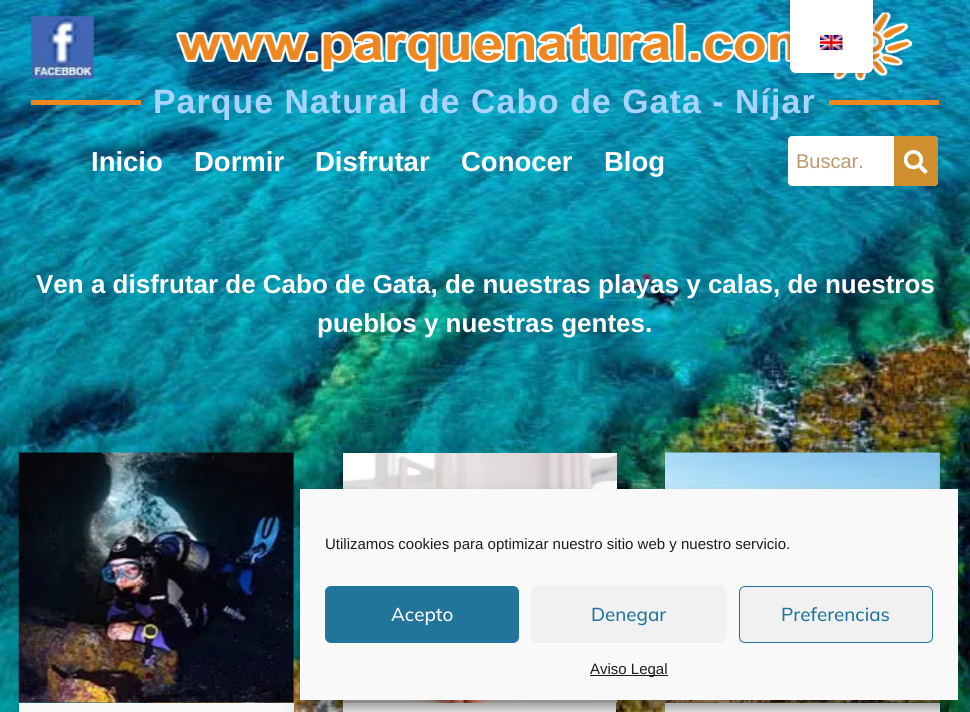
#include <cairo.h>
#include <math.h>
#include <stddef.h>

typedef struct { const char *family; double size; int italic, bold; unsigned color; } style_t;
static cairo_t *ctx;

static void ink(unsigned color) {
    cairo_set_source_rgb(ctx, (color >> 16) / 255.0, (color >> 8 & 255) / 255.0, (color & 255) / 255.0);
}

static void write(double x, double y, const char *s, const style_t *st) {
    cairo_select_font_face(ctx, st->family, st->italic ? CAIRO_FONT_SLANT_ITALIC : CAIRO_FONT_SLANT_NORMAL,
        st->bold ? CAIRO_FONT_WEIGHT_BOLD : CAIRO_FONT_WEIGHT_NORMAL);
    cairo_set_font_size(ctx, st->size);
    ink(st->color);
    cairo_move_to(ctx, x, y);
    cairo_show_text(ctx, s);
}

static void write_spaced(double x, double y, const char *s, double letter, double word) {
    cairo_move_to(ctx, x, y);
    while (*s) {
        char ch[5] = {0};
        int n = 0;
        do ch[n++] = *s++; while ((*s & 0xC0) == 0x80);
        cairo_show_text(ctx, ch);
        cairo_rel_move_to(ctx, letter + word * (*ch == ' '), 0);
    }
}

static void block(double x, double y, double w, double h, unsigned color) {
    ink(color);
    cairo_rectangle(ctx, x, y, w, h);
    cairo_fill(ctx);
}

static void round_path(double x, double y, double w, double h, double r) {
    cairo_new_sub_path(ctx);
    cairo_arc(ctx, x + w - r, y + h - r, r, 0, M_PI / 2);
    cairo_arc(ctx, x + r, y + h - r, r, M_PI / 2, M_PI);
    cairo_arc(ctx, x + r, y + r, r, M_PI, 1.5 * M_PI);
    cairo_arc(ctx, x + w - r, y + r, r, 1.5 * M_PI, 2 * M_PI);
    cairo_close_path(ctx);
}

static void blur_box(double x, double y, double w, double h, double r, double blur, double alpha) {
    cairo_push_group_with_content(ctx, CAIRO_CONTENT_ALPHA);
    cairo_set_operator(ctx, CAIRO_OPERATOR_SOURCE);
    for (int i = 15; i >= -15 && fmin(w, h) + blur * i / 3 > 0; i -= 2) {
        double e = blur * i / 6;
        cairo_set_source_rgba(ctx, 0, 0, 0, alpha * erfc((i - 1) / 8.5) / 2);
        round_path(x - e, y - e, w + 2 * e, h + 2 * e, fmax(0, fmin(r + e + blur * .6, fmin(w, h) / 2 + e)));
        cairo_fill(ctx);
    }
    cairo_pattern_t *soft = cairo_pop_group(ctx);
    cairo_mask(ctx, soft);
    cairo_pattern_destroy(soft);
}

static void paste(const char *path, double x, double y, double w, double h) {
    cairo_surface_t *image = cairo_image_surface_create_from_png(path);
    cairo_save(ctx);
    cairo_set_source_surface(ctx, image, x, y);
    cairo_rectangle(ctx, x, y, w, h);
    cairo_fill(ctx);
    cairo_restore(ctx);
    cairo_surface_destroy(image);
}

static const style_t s1 = {"Liberation Sans", 27.5, 0, 1, 0xffffff};
static const style_t s2 = {"Liberation Sans", 20, 0, 0, 0xbe996d};
static const style_t s3 = {"Liberation Sans", 26, 0, 1, 0xffffff};
static const style_t s4 = {"Liberation Sans", 15, 0, 0, 0x191e23};
static const style_t s5 = {"Mulish Medium", 18.75, 0, 0, 0xffffff};
static const style_t s6 = {"Mulish Medium", 18.75, 0, 0, 0x21759b};

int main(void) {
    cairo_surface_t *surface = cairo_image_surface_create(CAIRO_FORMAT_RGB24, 970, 712);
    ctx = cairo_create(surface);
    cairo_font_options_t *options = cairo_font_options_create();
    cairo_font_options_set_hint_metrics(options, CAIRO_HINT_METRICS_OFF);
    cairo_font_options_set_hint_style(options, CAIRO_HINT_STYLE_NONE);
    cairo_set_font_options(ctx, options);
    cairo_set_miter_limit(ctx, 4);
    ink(0xffffff);
    cairo_paint(ctx);
    paste("pic1.png", 0, 0, 970, 712);
    paste("pic4.png", 175, 12, 738, 69);
    ink(0x000000);
    blur_box(790, 0, 83, 73, 6, 5, 0.25);
    ink(0xffffff);
    cairo_new_path(ctx);
    cairo_move_to(ctx, 790, 0);
    cairo_line_to(ctx, 873, 0);
    cairo_line_to(ctx, 873, 67);
    cairo_curve_to(ctx, 873, 70.5, 870.5, 73, 867, 73);
    cairo_line_to(ctx, 796, 73);
    cairo_curve_to(ctx, 792.5, 73, 790, 70.5, 790, 67);
    cairo_close_path(ctx);
    cairo_fill(ctx);
    paste("pic2.png", 820, 35, 23, 15);
    paste("pic3.png", 31, 16, 63, 63);
    block(31, 100, 110, 5, 0xef8721);
    cairo_select_font_face(ctx, "Liberation Sans", CAIRO_FONT_SLANT_NORMAL, CAIRO_FONT_WEIGHT_BOLD);
    cairo_set_font_size(ctx, 33.75);
    ink(0xa6d3ff);
    write_spaced(153, 113, "Parque Natural de Cabo de Gata - Níjar", 1.1, 0);
    block(829, 100, 110, 5, 0xef8721);
    write(91, 171, "Inicio", &s1);
    write(194, 171, "Dormir", &s1);
    write(315, 171, "Disfrutar", &s1);
    write(461, 171, "Conocer", &s1);
    write(604, 171, "Blog", &s1);
    round_path(788, 136, 150, 50, 4);
    cairo_fill(ctx);
    write(796, 168, "Buscar.", &s2);
    ink(0xcf8f2f);
    cairo_new_path(ctx);
    cairo_move_to(ctx, 894, 136);
    cairo_line_to(ctx, 934, 136);
    cairo_curve_to(ctx, 936, 136, 938, 138, 938, 140);
    cairo_line_to(ctx, 938, 182);
    cairo_curve_to(ctx, 938, 184, 936, 186, 934, 186);
    cairo_line_to(ctx, 894, 186);
    cairo_close_path(ctx);
    cairo_fill(ctx);
    paste("pic5.png", 904, 150, 24, 24);
    write(36, 293, "Ven a disfrutar de Cabo de Gata, de nuestras playas y calas, de nuestros", &s3);
    write(317, 332, "pueblos y nuestras gentes.", &s3);
    paste("pic6.png", 18, 452, 276, 251);
    block(19, 703, 275, 9, 0xf9fafa);
    paste("pic7.png", 343, 453, 274, 250);
    block(343, 703, 273, 9, 0xf9fafa);
    paste("pic8.png", 665, 452, 275, 251);
    block(665, 703, 275, 9, 0xf9fafa);
    ink(0x000000);
    blur_box(300, 496, 658, 212, 0, 4, 0.23);
    blur_box(300, 501, 658, 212, 0, 12.5, 0.19);
    block(300, 489, 658, 211, 0xf9f9f9);
    write(325, 549, "Utilizamos cookies para optimizar nuestro sitio web y nuestro servicio.", &s4);
    ink(0x21759b);
    round_path(325.5, 586.5, 193, 56, 5.5);
    cairo_fill_preserve(ctx);
    cairo_set_line_width(ctx, 1);
    cairo_stroke(ctx);
    write(391, 621, "Acepto", &s5);
    ink(0xf1f1f1);
    round_path(531, 586, 195, 57, 6);
    cairo_fill(ctx);
    write(591, 621, "Denegar", &s6);
    ink(0xf1f1f1);
    round_path(739.5, 586.5, 193, 56, 5.5);
    cairo_fill_preserve(ctx);
    ink(0x21759b);
    cairo_stroke(ctx);
    write(781, 621, "Preferencias", &s6);
    block(590, 675, 78, 1, 0x191e23);
    write(590, 674, "Aviso Legal", &s4);
    cairo_surface_write_to_png(surface, "screenshot.png");
    cairo_font_options_destroy(options);
    cairo_destroy(ctx);
    cairo_surface_destroy(surface);
    return 0;
}
